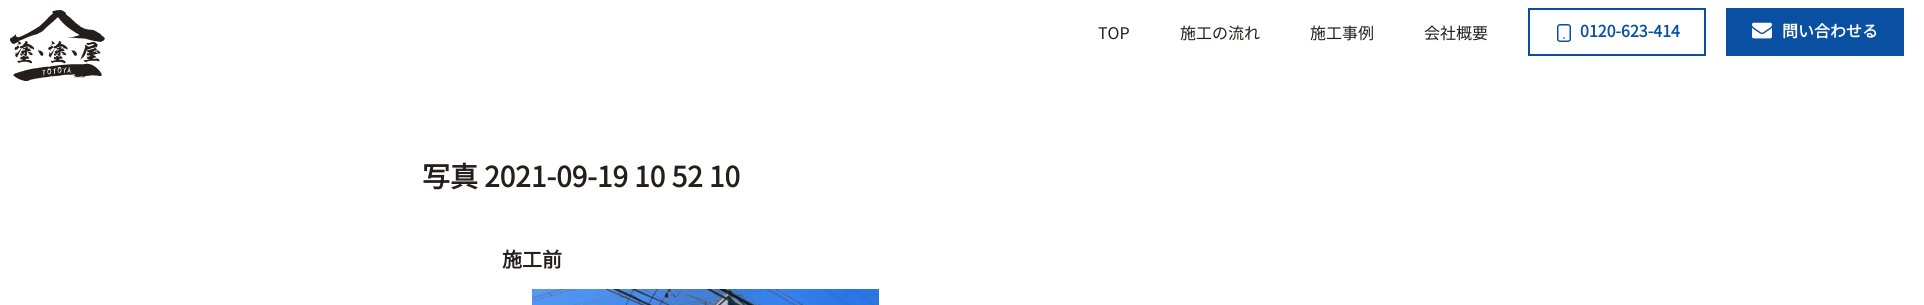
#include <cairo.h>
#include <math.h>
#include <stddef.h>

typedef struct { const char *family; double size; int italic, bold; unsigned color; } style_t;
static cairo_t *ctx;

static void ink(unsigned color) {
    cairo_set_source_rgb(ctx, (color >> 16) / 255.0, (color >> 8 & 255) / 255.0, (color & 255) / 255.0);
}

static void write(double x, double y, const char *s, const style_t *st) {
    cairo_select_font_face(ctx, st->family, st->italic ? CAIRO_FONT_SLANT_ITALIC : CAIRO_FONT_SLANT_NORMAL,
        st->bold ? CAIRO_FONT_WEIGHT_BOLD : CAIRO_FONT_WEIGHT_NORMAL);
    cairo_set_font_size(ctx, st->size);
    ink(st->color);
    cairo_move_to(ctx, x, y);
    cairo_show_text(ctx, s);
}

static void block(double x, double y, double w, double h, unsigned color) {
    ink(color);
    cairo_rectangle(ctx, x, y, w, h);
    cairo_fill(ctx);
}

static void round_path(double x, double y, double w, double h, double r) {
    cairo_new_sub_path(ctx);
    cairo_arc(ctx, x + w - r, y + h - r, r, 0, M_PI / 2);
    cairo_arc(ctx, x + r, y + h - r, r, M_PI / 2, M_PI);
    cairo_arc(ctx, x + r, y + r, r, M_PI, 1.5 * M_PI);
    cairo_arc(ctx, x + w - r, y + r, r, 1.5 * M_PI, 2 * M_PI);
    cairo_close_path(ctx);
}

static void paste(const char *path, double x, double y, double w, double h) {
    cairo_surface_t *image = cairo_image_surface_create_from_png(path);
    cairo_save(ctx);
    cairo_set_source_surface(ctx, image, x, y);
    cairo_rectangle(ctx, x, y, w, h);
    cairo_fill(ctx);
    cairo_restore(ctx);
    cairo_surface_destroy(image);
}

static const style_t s1 = {"Noto Sans JP Thin", 16, 0, 0, 0x241e1c};
static const style_t s2 = {"Noto Sans JP", 16, 0, 1, 0x0a50a2};
static const style_t s3 = {"Noto Sans JP", 16, 0, 1, 0xffffff};
static const style_t s4 = {"Noto Sans JP", 28, 0, 1, 0x241e1c};
static const style_t s5 = {"Noto Sans JP", 20, 0, 1, 0x241e1c};

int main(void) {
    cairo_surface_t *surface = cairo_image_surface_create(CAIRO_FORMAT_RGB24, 1924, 305);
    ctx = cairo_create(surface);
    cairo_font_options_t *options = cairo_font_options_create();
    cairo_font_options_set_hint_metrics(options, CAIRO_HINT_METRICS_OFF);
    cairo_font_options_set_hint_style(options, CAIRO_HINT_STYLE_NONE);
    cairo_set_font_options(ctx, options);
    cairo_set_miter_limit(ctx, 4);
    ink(0xffffff);
    cairo_paint(ctx);
    paste("pic1.png", 10, 10, 95, 71);
    write(1098, 39, "TOP", &s1);
    write(1180, 39, "施⼯の流れ", &s1);
    write(1310, 39, "施⼯事例", &s1);
    write(1424, 39, "会社概要", &s1);
    cairo_rectangle(ctx, 1529, 9, 176, 46);
    ink(0x0a50a2);
    cairo_stroke(ctx);
    round_path(1557.75, 24.75, 12.5, 16.5, 2.25);
    cairo_set_line_width(ctx, 1.5);
    cairo_stroke(ctx);
    write(1580, 37, "0120-623-414", &s2);
    cairo_new_path(ctx);
    cairo_move_to(ctx, 1564, 38);
    cairo_line_to(ctx, 1564, 38);
    cairo_set_line_width(ctx, 1.7);
    cairo_set_line_cap(ctx, CAIRO_LINE_CAP_ROUND);
    cairo_set_line_join(ctx, CAIRO_LINE_JOIN_ROUND);
    cairo_stroke(ctx);
    block(1726, 8, 178, 48, 0x0a50a2);
    paste("pic2.png", 1752, 22, 20, 17);
    write(1782, 37, "問い合わせる", &s3);
    write(422, 187, "写真 2021-09-19 10 52 10", &s4);
    write(502, 267, "施工前", &s5);
    paste("pic3.png", 532, 289, 347, 16);
    cairo_surface_write_to_png(surface, "screenshot.png");
    cairo_font_options_destroy(options);
    cairo_destroy(ctx);
    cairo_surface_destroy(surface);
    return 0;
}
